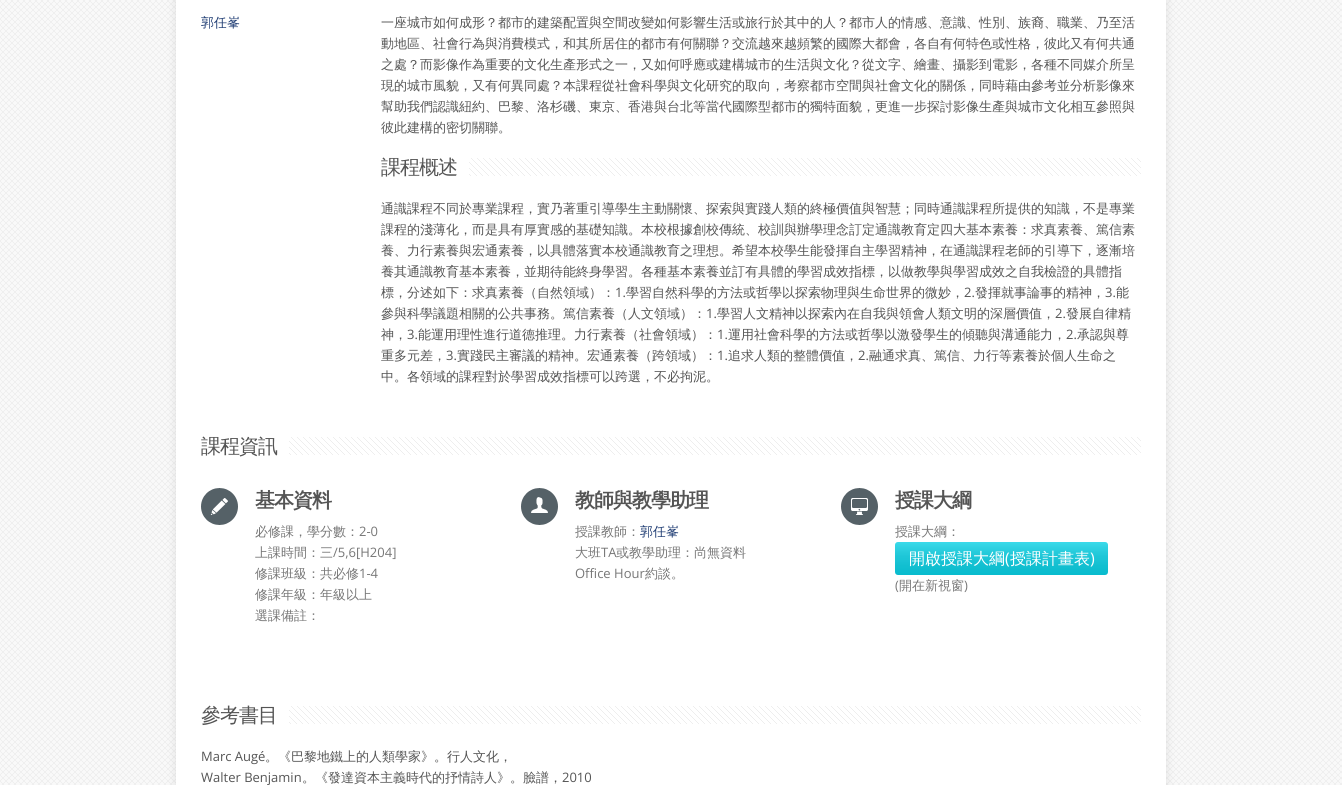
#include <cairo.h>
#include <math.h>
#include <stddef.h>

typedef struct { const char *family; double size; int italic, bold; unsigned color; } style_t;
static cairo_t *ctx;

static void ink(unsigned color) {
    cairo_set_source_rgb(ctx, (color >> 16) / 255.0, (color >> 8 & 255) / 255.0, (color & 255) / 255.0);
}

static void write(double x, double y, const char *s, const style_t *st) {
    cairo_select_font_face(ctx, st->family, st->italic ? CAIRO_FONT_SLANT_ITALIC : CAIRO_FONT_SLANT_NORMAL,
        st->bold ? CAIRO_FONT_WEIGHT_BOLD : CAIRO_FONT_WEIGHT_NORMAL);
    cairo_set_font_size(ctx, st->size);
    ink(st->color);
    cairo_move_to(ctx, x, y);
    cairo_show_text(ctx, s);
}

static void write_spaced(double x, double y, const char *s, double letter, double word) {
    cairo_move_to(ctx, x, y);
    while (*s) {
        char ch[5] = {0};
        int n = 0;
        do ch[n++] = *s++; while ((*s & 0xC0) == 0x80);
        cairo_show_text(ctx, ch);
        cairo_rel_move_to(ctx, letter + word * (*ch == ' '), 0);
    }
}

static void block(double x, double y, double w, double h, unsigned color) {
    ink(color);
    cairo_rectangle(ctx, x, y, w, h);
    cairo_fill(ctx);
}

static void round_path(double x, double y, double w, double h, double r) {
    cairo_new_sub_path(ctx);
    cairo_arc(ctx, x + w - r, y + h - r, r, 0, M_PI / 2);
    cairo_arc(ctx, x + r, y + h - r, r, M_PI / 2, M_PI);
    cairo_arc(ctx, x + r, y + r, r, M_PI, 1.5 * M_PI);
    cairo_arc(ctx, x + w - r, y + r, r, 1.5 * M_PI, 2 * M_PI);
    cairo_close_path(ctx);
}

static void blur_box(double x, double y, double w, double h, double r, double blur, double alpha) {
    cairo_push_group_with_content(ctx, CAIRO_CONTENT_ALPHA);
    cairo_set_operator(ctx, CAIRO_OPERATOR_SOURCE);
    for (int i = 15; i >= -15 && fmin(w, h) + blur * i / 3 > 0; i -= 2) {
        double e = blur * i / 6;
        cairo_set_source_rgba(ctx, 0, 0, 0, alpha * erfc((i - 1) / 8.5) / 2);
        round_path(x - e, y - e, w + 2 * e, h + 2 * e, fmax(0, fmin(r + e + blur * .6, fmin(w, h) / 2 + e)));
        cairo_fill(ctx);
    }
    cairo_pattern_t *soft = cairo_pop_group(ctx);
    cairo_mask(ctx, soft);
    cairo_pattern_destroy(soft);
}

static void paste(const char *path, double x, double y, double w, double h) {
    cairo_surface_t *image = cairo_image_surface_create_from_png(path);
    cairo_save(ctx);
    cairo_set_source_surface(ctx, image, x, y);
    cairo_rectangle(ctx, x, y, w, h);
    cairo_fill(ctx);
    cairo_restore(ctx);
    cairo_surface_destroy(image);
}

static const style_t s1 = {"WenQuanYi Zen Hei Medium", 13, 0, 0, 0x213e74};
static const style_t s2 = {"WenQuanYi Zen Hei Medium", 13, 0, 0, 0x555555};
static const style_t s3 = {"Open Sans", 13, 0, 0, 0x555555};
static const style_t s4 = {"WenQuanYi Zen Hei Medium", 13, 0, 0, 0x777777};
static const style_t s5 = {"Open Sans", 13, 0, 0, 0x777777};
static const style_t s6 = {"WenQuanYi Zen Hei Medium", 16, 0, 0, 0xffffff};
static const style_t s7 = {"Open Sans", 16, 0, 0, 0xffffff};

int main(void) {
    cairo_surface_t *surface = cairo_image_surface_create(CAIRO_FORMAT_RGB24, 1342, 785);
    ctx = cairo_create(surface);
    cairo_font_options_t *options = cairo_font_options_create();
    cairo_font_options_set_hint_metrics(options, CAIRO_HINT_METRICS_OFF);
    cairo_font_options_set_hint_style(options, CAIRO_HINT_STYLE_NONE);
    cairo_set_font_options(ctx, options);
    cairo_set_miter_limit(ctx, 4);
    cairo_pattern_t *gradient;
    ink(0xffffff);
    cairo_paint(ctx);
    paste("pic1.png", 0, 0, 1342, 785);
    ink(0x000000);
    blur_box(176, -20, 990, 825, 5, 5, 0.1);
    block(176, 0, 990, 785, 0xffffff);
    write(201, 27, "郭任峯", &s1);
    write(381, 27, "一座城市如何成形？都市的建築配置與空間改變如何影響生活或旅行於其中的人？都市人的情感、意識、性別、族裔、職業、乃至活", &s2);
    write(381, 48, "動地區、社會行為與消費模式，和其所居住的都市有何關聯？交流越來越頻繁的國際大都會，各自有何特色或性格，彼此又有何共通", &s2);
    write(381, 69, "之處？而影像作為重要的文化生產形式之一，又如何呼應或建構城市的生活與文化？從文字、繪畫、攝影到電影，各種不同媒介所呈", &s2);
    write(381, 90, "現的城市風貌，又有何異同處？本課程從社會科學與文化研究的取向，考察都市空間與社會文化的關係，同時藉由參考並分析影像來", &s2);
    write(381, 111, "幫助我們認識紐約、巴黎、洛杉磯、東京、香港與台北等當代國際型都市的獨特面貌，更進一步探討影像生產與城市文化相互參照與", &s2);
    write(381, 132, "彼此建構的密切關聯。", &s2);
    paste("pic2.png", 469, 158, 672, 18);
    cairo_set_font_size(ctx, 20);
    write_spaced(381, 174, "課程概述", -1, 0);
    write(381, 213, "通識課程不同於專業課程，實乃著重引導學生主動關懷、探索與實踐人類的終極價值與智慧；同時通識課程所提供的知識，不是專業", &s2);
    write(381, 234, "課程的淺薄化，而是具有厚實感的基礎知識。本校根據創校傳統、校訓與辦學理念訂定通識教育定四大基本素養：求真素養、篤信素", &s2);
    write(381, 255, "養、力行素養與宏通素養，以具體落實本校通識教育之理想。希望本校學生能發揮自主學習精神，在通識課程老師的引導下，逐漸培", &s2);
    write(381, 276, "養其通識教育基本素養，並期待能終身學習。各種基本素養並訂有具體的學習成效指標，以做教學與學習成效之自我檢證的具體指", &s2);
    write(381, 297, "標，分述如下：求真素養（自然領域）：", &s2);
    write(615, 297, "1.", &s3);
    write(626, 297, "學習自然科學的方法或哲學以探索物理與生命世界的微妙，", &s2);
    write(964, 297, "2.", &s3);
    write(975, 297, "發揮就事論事的精神，", &s2);
    write(1105, 297, "3.", &s3);
    write(1116, 297, "能", &s2);
    write(381, 318, "參與科學議題相關的公共事務。篤信素養（人文領域）：", &s2);
    write(706, 318, "1.", &s3);
    write(717, 318, "學習人文精神以探索內在自我與領會人類文明的深層價值，", &s2);
    write(1055, 318, "2.", &s3);
    write(1066, 318, "發展自律精", &s2);
    write(381, 339, "神，", &s2);
    write(407, 339, "3.", &s3);
    write(418, 339, "能運用理性進行道德推理。力行素養（社會領域）：", &s2);
    write(717, 339, "1.", &s3);
    write(728, 339, "運用社會科學的方法或哲學以激發學生的傾聽與溝通能力，", &s2);
    write(1066, 339, "2.", &s3);
    write(1077, 339, "承認與尊", &s2);
    write(381, 360, "重多元差，", &s2);
    write(446, 360, "3.", &s3);
    write(457, 360, "實踐民主審議的精神。宏通素養（跨領域）：", &s2);
    write(717, 360, "1.", &s3);
    write(728, 360, "追求人類的整體價值，", &s2);
    write(858, 360, "2.", &s3);
    write(869, 360, "融通求真、篤信、力行等素養於個人生命之", &s2);
    write(381, 381, "中。各領域的課程對於學習成效指標可以跨選，不必拘泥。", &s2);
    paste("pic3.png", 289, 437, 852, 18);
    cairo_set_font_size(ctx, 20);
    write_spaced(201, 453, "課程資訊", -1, 0);
    paste("pic4.png", 201, 488, 37, 37);
    cairo_select_font_face(ctx, "WenQuanYi Zen Hei", CAIRO_FONT_SLANT_NORMAL, CAIRO_FONT_WEIGHT_BOLD);
    write_spaced(255, 507, "基本資料", -1, 0);
    write(255, 536, "必修課，學分數：", &s4);
    write(359, 536, "2-0", &s5);
    write(255, 557, "上課時間：三", &s4);
    write(333, 557, "/5,6[H204]", &s5);
    write(255, 578, "修課班級：共必修", &s4);
    write(359, 578, "1-4", &s5);
    write(255, 599, "修課年級：年級以上", &s4);
    write(255, 620, "選課備註：", &s4);
    paste("pic5.png", 521, 488, 37, 37);
    cairo_select_font_face(ctx, "WenQuanYi Zen Hei", CAIRO_FONT_SLANT_NORMAL, CAIRO_FONT_WEIGHT_BOLD);
    cairo_set_font_size(ctx, 20);
    ink(0x555555);
    write_spaced(575, 507, "教師與教學助理", -1, 0);
    write(575, 536, "授課教師：", &s4);
    write(640, 536, "郭任峯", &s1);
    write(575, 557, "大班", &s4);
    write(601, 557, "TA", &s5);
    write(616, 557, "或教學助理：尚無資料", &s4);
    write(575, 578, "Office Hour", &s5);
    write(645, 578, "約談。", &s4);
    paste("pic6.png", 841, 488, 37, 37);
    cairo_select_font_face(ctx, "WenQuanYi Zen Hei", CAIRO_FONT_SLANT_NORMAL, CAIRO_FONT_WEIGHT_BOLD);
    cairo_set_font_size(ctx, 20);
    ink(0x555555);
    write_spaced(895, 507, "授課大綱", -1, 0);
    write(895, 536, "授課大綱：", &s4);
    ink(0x0ad1e5);
    round_path(895, 542, 213, 33, 3);
    cairo_fill(ctx);
    gradient = cairo_pattern_create_linear(1002, 542, 1002, 575);
    cairo_pattern_add_color_stop_rgba(gradient, 0, 1, 1, 1, 0.2);
    cairo_pattern_add_color_stop_rgba(gradient, 1, 0, 0, 0, 0.1);
    cairo_set_source(ctx, gradient);
    cairo_pattern_destroy(gradient);
    round_path(895, 542, 213, 33, 3);
    cairo_fill(ctx);
    write(909, 564, "開啟授課大綱", &s6);
    write(1005, 564, "(", &s7);
    write(1010, 564, "授課計畫表", &s6);
    write(1090, 564, ")", &s7);
    write(895, 590, "(", &s5);
    write(899, 590, "開在新視窗", &s4);
    write(964, 590, ")", &s5);
    paste("pic3.png", 289, 706, 852, 18);
    cairo_select_font_face(ctx, "WenQuanYi Zen Hei Medium", CAIRO_FONT_SLANT_NORMAL, CAIRO_FONT_WEIGHT_NORMAL);
    cairo_set_font_size(ctx, 20);
    ink(0x555555);
    write_spaced(201, 722, "參考書目", -1, 0);
    write(201, 761, "Marc Augé", &s3);
    write(265, 761, "。《巴黎地鐵上的人類學家》。行人文化，", &s2);
    write(201, 782, "Walter Benjamin", &s3);
    write(302, 782, "。《發達資本主義時代的抒情詩人》。臉譜，", &s2);
    write(562, 782, "2010", &s3);
    cairo_surface_write_to_png(surface, "screenshot.png");
    cairo_font_options_destroy(options);
    cairo_destroy(ctx);
    cairo_surface_destroy(surface);
    return 0;
}
